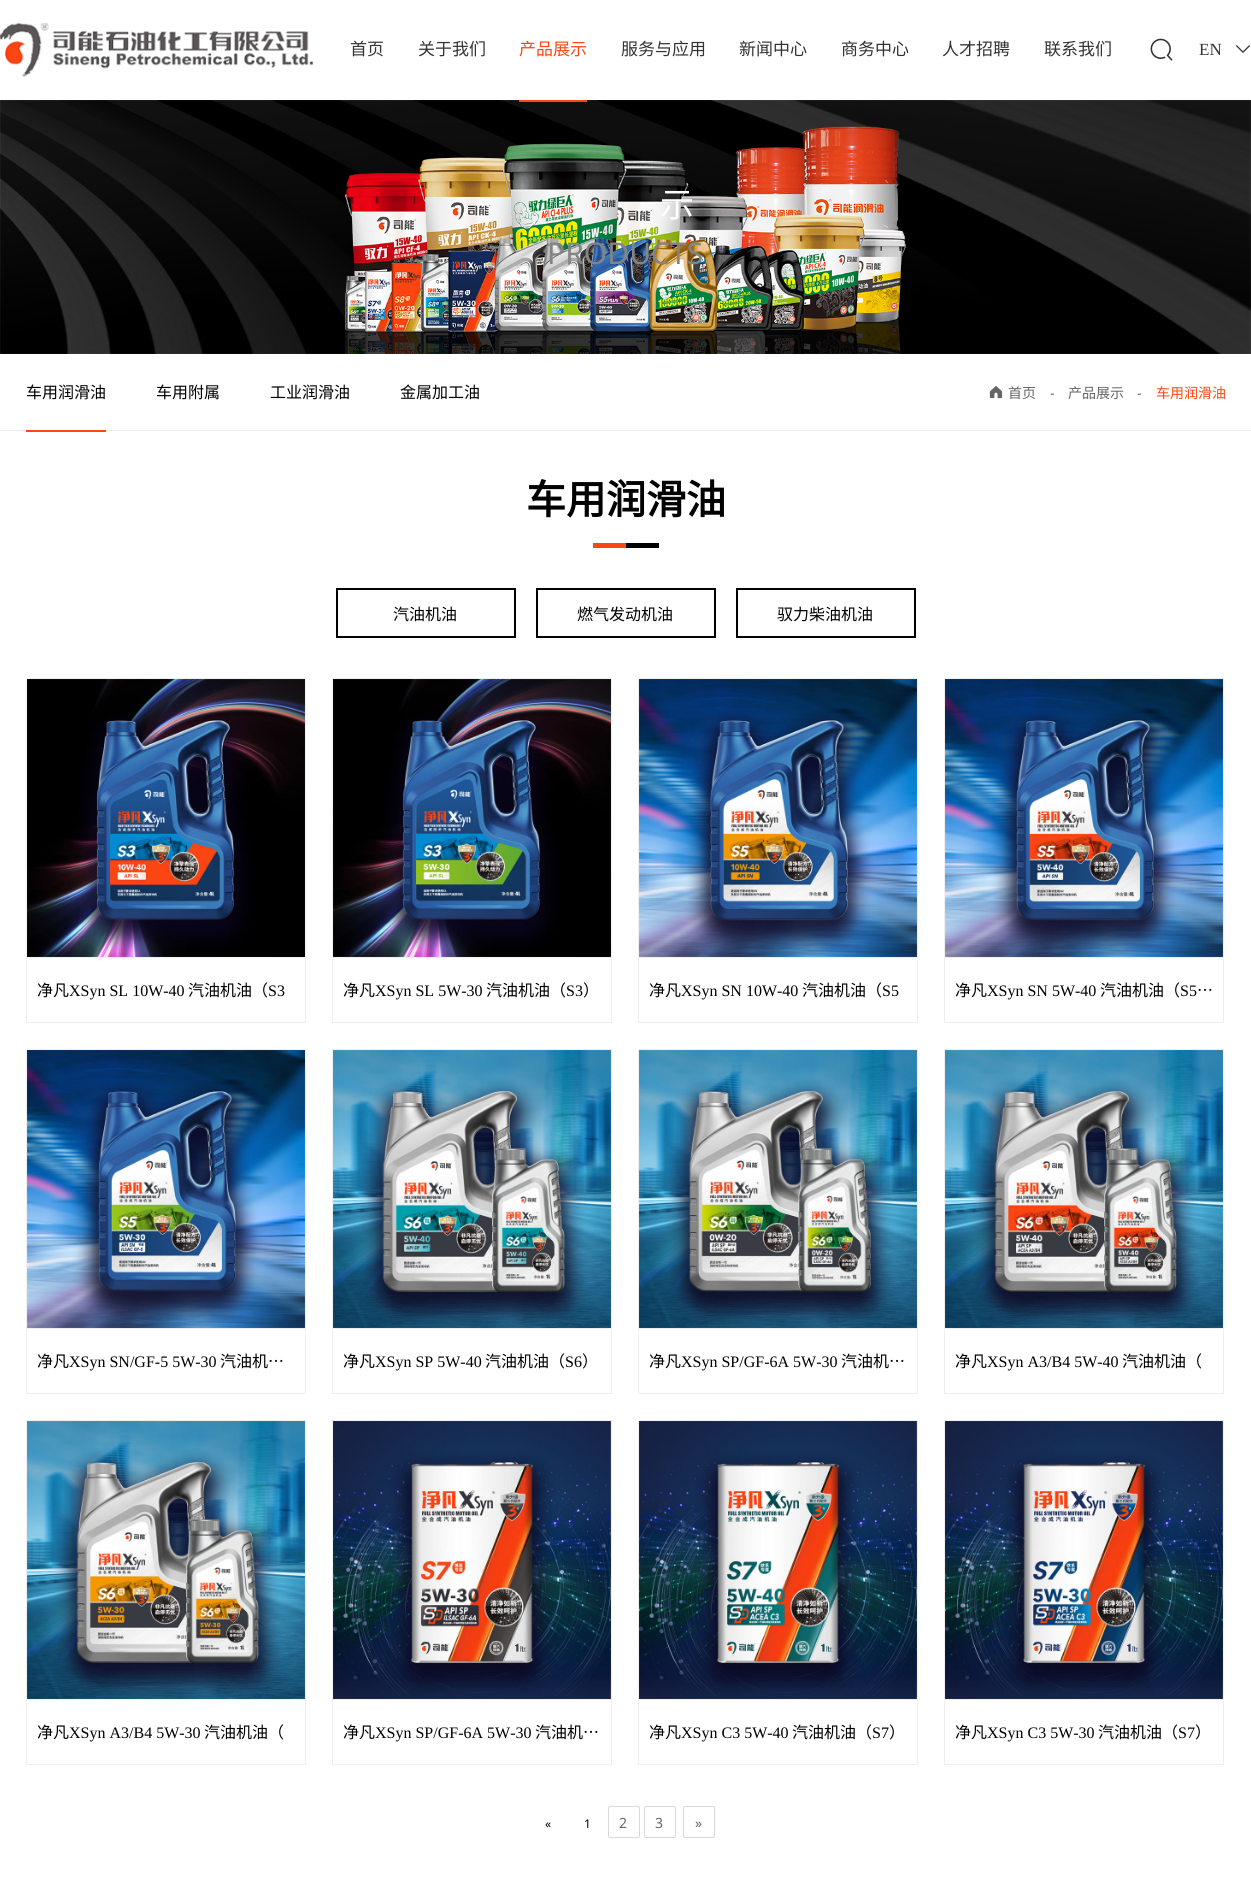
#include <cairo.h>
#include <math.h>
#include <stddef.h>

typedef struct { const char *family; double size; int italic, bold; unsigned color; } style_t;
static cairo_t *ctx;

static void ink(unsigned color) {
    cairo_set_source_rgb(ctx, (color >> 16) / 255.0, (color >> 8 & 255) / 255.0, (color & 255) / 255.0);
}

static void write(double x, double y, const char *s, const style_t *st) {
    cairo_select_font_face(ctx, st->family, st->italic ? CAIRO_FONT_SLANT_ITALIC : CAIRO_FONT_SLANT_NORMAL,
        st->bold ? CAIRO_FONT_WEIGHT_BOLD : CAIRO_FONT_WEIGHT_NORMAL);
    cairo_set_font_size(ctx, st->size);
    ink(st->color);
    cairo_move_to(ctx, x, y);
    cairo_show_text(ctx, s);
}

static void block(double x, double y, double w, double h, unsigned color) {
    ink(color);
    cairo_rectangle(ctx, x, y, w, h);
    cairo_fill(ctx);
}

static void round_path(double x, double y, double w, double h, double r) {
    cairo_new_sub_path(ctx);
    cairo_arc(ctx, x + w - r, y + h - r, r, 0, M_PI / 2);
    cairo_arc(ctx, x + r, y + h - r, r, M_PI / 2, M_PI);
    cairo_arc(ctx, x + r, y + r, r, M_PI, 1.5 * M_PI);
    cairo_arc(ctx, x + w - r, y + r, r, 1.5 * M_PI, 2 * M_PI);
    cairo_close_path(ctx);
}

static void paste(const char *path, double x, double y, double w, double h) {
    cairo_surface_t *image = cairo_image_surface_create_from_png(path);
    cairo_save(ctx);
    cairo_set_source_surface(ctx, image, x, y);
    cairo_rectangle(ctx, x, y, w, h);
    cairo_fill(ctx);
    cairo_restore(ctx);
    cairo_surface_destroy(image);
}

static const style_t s1 = {"Noto Sans CJK SC", 17, 0, 0, 0x333333};
static const style_t s2 = {"Noto Sans CJK SC", 17, 0, 0, 0xfe4614};
static const style_t s3 = {"Liberation Serif", 17, 0, 0, 0x333333};
static const style_t s4 = {"Noto Sans CJK SC", 34, 0, 0, 0xffffff};
static const style_t s5 = {"Noto Sans", 30, 0, 0, 0x848484};
static const style_t s6 = {"Noto Sans CJK SC", 16, 0, 0, 0x000000};
static const style_t s7 = {"Noto Sans CJK SC", 14, 0, 0, 0x666666};
static const style_t s8 = {"Noto Sans", 14, 0, 0, 0x666666};
static const style_t s9 = {"Noto Sans CJK SC", 14, 0, 0, 0xfe4614};
static const style_t s10 = {"Noto Sans CJK SC", 40, 0, 1, 0x000000};
static const style_t s11 = {"Liberation Serif", 16, 0, 0, 0x000000};
static const style_t s12 = {"Noto Sans", 12, 0, 0, 0x000000};

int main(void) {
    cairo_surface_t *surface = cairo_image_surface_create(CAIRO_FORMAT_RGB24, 1251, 1891);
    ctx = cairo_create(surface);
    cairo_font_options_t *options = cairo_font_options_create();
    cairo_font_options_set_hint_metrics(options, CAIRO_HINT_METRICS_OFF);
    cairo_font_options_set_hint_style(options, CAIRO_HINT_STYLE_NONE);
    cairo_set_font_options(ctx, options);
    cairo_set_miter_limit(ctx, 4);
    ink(0xffffff);
    cairo_paint(ctx);
    paste("pic1.png", 0, 22, 313, 55);
    write(350, 55, "首页", &s1);
    write(418, 55, "关于我们", &s1);
    paste("pic4.png", 0, 100, 1251, 254);
    block(519, 100, 68, 2, 0xfe4614);
    write(519, 55, "产品展示", &s2);
    write(621, 55, "服务与应用", &s1);
    write(739, 55, "新闻中心", &s1);
    write(841, 55, "商务中心", &s1);
    write(942, 55, "人才招聘", &s1);
    write(1044, 55, "联系我们", &s1);
    paste("pic2.png", 1150, 38, 23, 23);
    write(1199, 55, "EN", &s3);
    paste("pic3.png", 1236, 45, 14, 8);
    write(660, 217, "示", &s4);
    write(547, 264, "PRODUCTS", &s5);
    block(0, 430, 1251, 1, 0xececec);
    block(26, 430, 80, 2, 0xfe4614);
    write(26, 398, "车用润滑油", &s6);
    write(156, 398, "车用附属", &s6);
    write(270, 398, "工业润滑油", &s6);
    write(400, 398, "金属加工油", &s6);
    paste("pic5.png", 989, 386, 14, 13);
    write(1008, 398, "首页", &s7);
    write(1050, 398, "-", &s8);
    write(1068, 398, "产品展示", &s7);
    write(1137, 398, "-", &s8);
    write(1156, 398, "车用润滑油", &s9);
    write(526, 514, "车用润滑油", &s10);
    block(593, 543, 33, 5, 0xfe4614);
    block(626, 543, 33, 5, 0x000000);
    cairo_rectangle(ctx, 337, 589, 178, 48);
    cairo_stroke(ctx);
    write(393, 620, "汽油机油", &s6);
    cairo_rectangle(ctx, 537, 589, 178, 48);
    cairo_stroke(ctx);
    write(577, 620, "燃气发动机油", &s6);
    cairo_rectangle(ctx, 737, 589, 178, 48);
    cairo_stroke(ctx);
    write(777, 620, "驭力柴油机油", &s6);
    cairo_rectangle(ctx, 26.5, 678.5, 279, 344);
    ink(0xefefef);
    cairo_set_line_width(ctx, 1);
    cairo_stroke(ctx);
    paste("pic6.png", 27, 679, 278, 278);
    block(27, 957, 278, 1, 0xefefef);
    write(37, 996, "净凡", &s6);
    write(69, 996, "XSyn SL 10W-40", &s11);
    write(188, 996, "汽油机油（", &s6);
    write(268, 996, "S3", &s11);
    cairo_rectangle(ctx, 332.5, 678.5, 279, 344);
    ink(0xefefef);
    cairo_stroke(ctx);
    paste("pic7.png", 333, 679, 278, 278);
    block(333, 957, 278, 1, 0xefefef);
    write(343, 996, "净凡", &s6);
    write(375, 996, "XSyn SL 5W-30", &s11);
    write(486, 996, "汽油机油（", &s6);
    write(566, 996, "S3", &s11);
    write(583, 996, "）", &s6);
    cairo_rectangle(ctx, 638.5, 678.5, 279, 344);
    ink(0xefefef);
    cairo_stroke(ctx);
    paste("pic8.png", 639, 679, 278, 278);
    block(639, 957, 278, 1, 0xefefef);
    write(649, 996, "净凡", &s6);
    write(681, 996, "XSyn SN 10W-40", &s11);
    write(802, 996, "汽油机油（", &s6);
    write(882, 996, "S5", &s11);
    cairo_rectangle(ctx, 944.5, 678.5, 279, 344);
    ink(0xefefef);
    cairo_stroke(ctx);
    paste("pic9.png", 945, 679, 278, 278);
    block(945, 957, 278, 1, 0xefefef);
    write(955, 996, "净凡", &s6);
    write(987, 996, "XSyn SN 5W-40", &s11);
    write(1100, 996, "汽油机油（", &s6);
    write(1180, 996, "S5", &s11);
    write(1197, 996, "…", &s6);
    cairo_rectangle(ctx, 26.5, 1049.5, 279, 344);
    ink(0xefefef);
    cairo_stroke(ctx);
    paste("pic10.png", 27, 1050, 278, 278);
    block(27, 1328, 278, 1, 0xefefef);
    write(37, 1367, "净凡", &s6);
    write(69, 1367, "XSyn SN/GF-5 5W-30", &s11);
    write(220, 1367, "汽油机…", &s6);
    cairo_rectangle(ctx, 332.5, 1049.5, 279, 344);
    ink(0xefefef);
    cairo_stroke(ctx);
    paste("pic11.png", 333, 1050, 278, 278);
    block(333, 1328, 278, 1, 0xefefef);
    write(343, 1367, "净凡", &s6);
    write(375, 1367, "XSyn SP 5W-40", &s11);
    write(485, 1367, "汽油机油（", &s6);
    write(565, 1367, "S6", &s11);
    write(582, 1367, "）", &s6);
    cairo_rectangle(ctx, 638.5, 1049.5, 279, 344);
    ink(0xefefef);
    cairo_stroke(ctx);
    paste("pic12.png", 639, 1050, 278, 278);
    block(639, 1328, 278, 1, 0xefefef);
    write(649, 1367, "净凡", &s6);
    write(681, 1367, "XSyn SP/GF-6A 5W-30", &s11);
    write(841, 1367, "汽油机…", &s6);
    cairo_rectangle(ctx, 944.5, 1049.5, 279, 344);
    ink(0xefefef);
    cairo_stroke(ctx);
    paste("pic13.png", 945, 1050, 278, 278);
    block(945, 1328, 278, 1, 0xefefef);
    write(955, 1367, "净凡", &s6);
    write(987, 1367, "XSyn A3/B4 5W-40", &s11);
    write(1122, 1367, "汽油机油（", &s6);
    cairo_rectangle(ctx, 26.5, 1420.5, 279, 344);
    ink(0xefefef);
    cairo_stroke(ctx);
    paste("pic14.png", 27, 1421, 278, 278);
    block(27, 1699, 278, 1, 0xefefef);
    write(37, 1738, "净凡", &s6);
    write(69, 1738, "XSyn A3/B4 5W-30", &s11);
    write(204, 1738, "汽油机油（", &s6);
    cairo_rectangle(ctx, 332.5, 1420.5, 279, 344);
    ink(0xefefef);
    cairo_stroke(ctx);
    paste("pic15.png", 333, 1421, 278, 278);
    block(333, 1699, 278, 1, 0xefefef);
    write(343, 1738, "净凡", &s6);
    write(375, 1738, "XSyn SP/GF-6A 5W-30", &s11);
    write(535, 1738, "汽油机…", &s6);
    cairo_rectangle(ctx, 638.5, 1420.5, 279, 344);
    ink(0xefefef);
    cairo_stroke(ctx);
    paste("pic16.png", 639, 1421, 278, 278);
    block(639, 1699, 278, 1, 0xefefef);
    write(649, 1738, "净凡", &s6);
    write(681, 1738, "XSyn C3 5W-40", &s11);
    write(792, 1738, "汽油机油（", &s6);
    write(872, 1738, "S7", &s11);
    write(889, 1738, "）", &s6);
    cairo_rectangle(ctx, 944.5, 1420.5, 279, 344);
    ink(0xefefef);
    cairo_stroke(ctx);
    paste("pic17.png", 945, 1421, 278, 278);
    block(945, 1699, 278, 1, 0xefefef);
    write(955, 1738, "净凡", &s6);
    write(987, 1738, "XSyn C3 5W-30", &s11);
    write(1098, 1738, "汽油机油（", &s6);
    write(1178, 1738, "S7", &s11);
    write(1195, 1738, "）", &s6);
    write(545, 1828, "«", &s12);
    write(584, 1828, "1", &s12);
    round_path(608.5, 1806.5, 31, 31, 1.5);
    ink(0xd9d9d9);
    cairo_stroke(ctx);
    write(619, 1828, "2", &s8);
    round_path(644.5, 1806.5, 31, 31, 1.5);
    ink(0xd9d9d9);
    cairo_stroke(ctx);
    write(655, 1828, "3", &s8);
    round_path(683.5, 1806.5, 31, 31, 1.5);
    ink(0xd9d9d9);
    cairo_stroke(ctx);
    write(695, 1828, "»", &s8);
    cairo_surface_write_to_png(surface, "screenshot.png");
    cairo_font_options_destroy(options);
    cairo_destroy(ctx);
    cairo_surface_destroy(surface);
    return 0;
}
